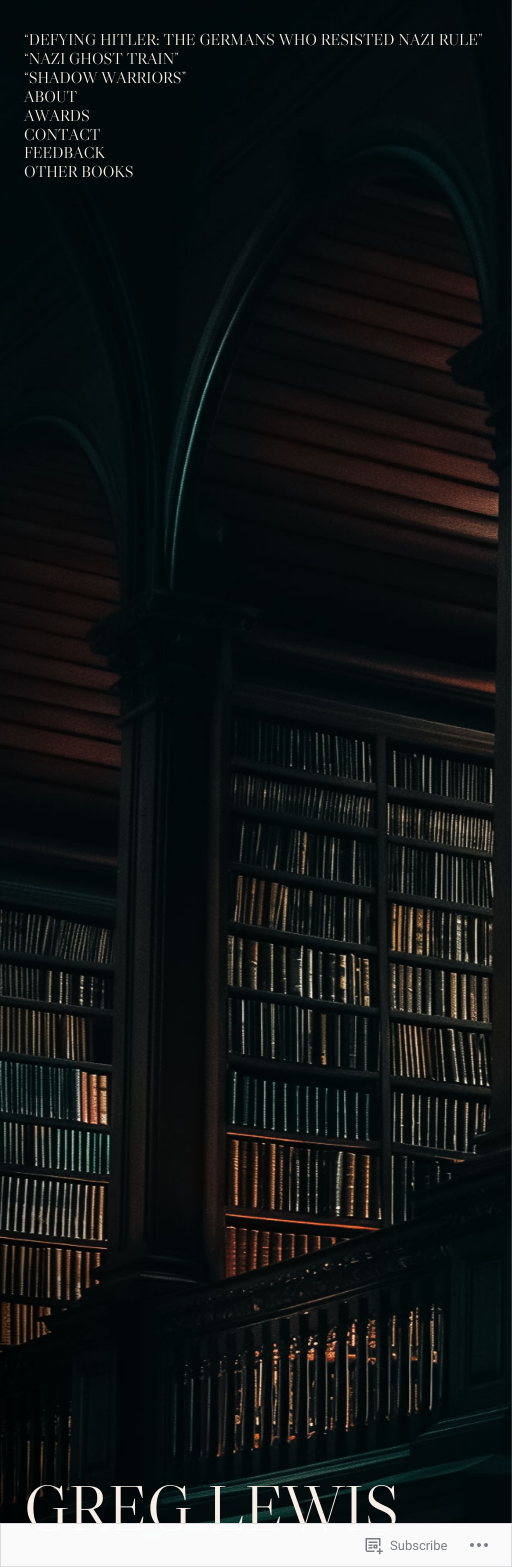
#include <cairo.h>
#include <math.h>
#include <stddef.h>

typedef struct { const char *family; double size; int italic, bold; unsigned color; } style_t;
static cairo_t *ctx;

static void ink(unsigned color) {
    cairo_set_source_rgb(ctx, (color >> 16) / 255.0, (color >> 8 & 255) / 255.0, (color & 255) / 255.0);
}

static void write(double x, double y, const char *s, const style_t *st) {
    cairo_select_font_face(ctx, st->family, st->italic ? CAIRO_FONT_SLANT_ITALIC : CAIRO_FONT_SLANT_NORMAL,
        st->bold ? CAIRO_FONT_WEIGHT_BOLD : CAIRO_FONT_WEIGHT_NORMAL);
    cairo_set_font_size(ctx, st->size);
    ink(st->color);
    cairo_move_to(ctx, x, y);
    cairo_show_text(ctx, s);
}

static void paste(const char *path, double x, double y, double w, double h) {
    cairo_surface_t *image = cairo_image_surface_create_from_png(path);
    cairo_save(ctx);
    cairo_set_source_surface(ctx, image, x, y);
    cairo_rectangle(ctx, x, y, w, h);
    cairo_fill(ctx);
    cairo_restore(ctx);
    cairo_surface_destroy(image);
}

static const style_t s1 = {"Libre Caslon Display", 15.9, 0, 0, 0xf9efe6};
static const style_t s2 = {"Libre Caslon Display", 63.75, 0, 0, 0xf9efe6};
static const style_t s3 = {"Roboto", 13, 0, 0, 0x7b7f84};

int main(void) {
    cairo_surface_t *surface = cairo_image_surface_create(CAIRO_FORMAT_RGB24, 512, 1567);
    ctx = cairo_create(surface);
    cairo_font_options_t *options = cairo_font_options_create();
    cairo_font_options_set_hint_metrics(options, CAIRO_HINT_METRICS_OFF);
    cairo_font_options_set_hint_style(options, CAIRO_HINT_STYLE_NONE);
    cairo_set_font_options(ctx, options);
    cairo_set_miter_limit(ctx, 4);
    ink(0xffffff);
    cairo_paint(ctx);
    paste("pic1.png", 0, 0, 512, 1567);
    write(24, 45, "“DEFYING HITLER: THE GERMANS WHO RESISTED NAZI RULE”", &s1);
    write(24, 64, "“NAZI GHOST TRAIN”", &s1);
    write(24, 83, "“SHADOW WARRIORS”", &s1);
    write(24, 102, "ABOUT", &s1);
    write(24, 121, "AWARDS", &s1);
    write(24, 140, "CONTACT", &s1);
    write(24, 158, "FEEDBACK", &s1);
    write(24, 177, "OTHER BOOKS", &s1);
    write(24, 1530, "GREG LEWIS", &s2);
    cairo_set_source_rgba(ctx, 1, 1, 1, 0.98);
    cairo_rectangle(ctx, 0, 1523, 512, 44);
    cairo_fill(ctx);
    cairo_rectangle(ctx, 0.5, 1523.5, 511, 43);
    cairo_set_source_rgba(ctx, 0.863, 0.863, 0.871, 0.98);
    cairo_set_line_width(ctx, 1);
    cairo_stroke(ctx);
    paste("pic2.png", 365, 1538, 18, 17);
    write(390, 1550, "Subscribe", &s3);
    paste("pic3.png", 470, 1543, 18, 4);
    cairo_surface_write_to_png(surface, "screenshot.png");
    cairo_font_options_destroy(options);
    cairo_destroy(ctx);
    cairo_surface_destroy(surface);
    return 0;
}
